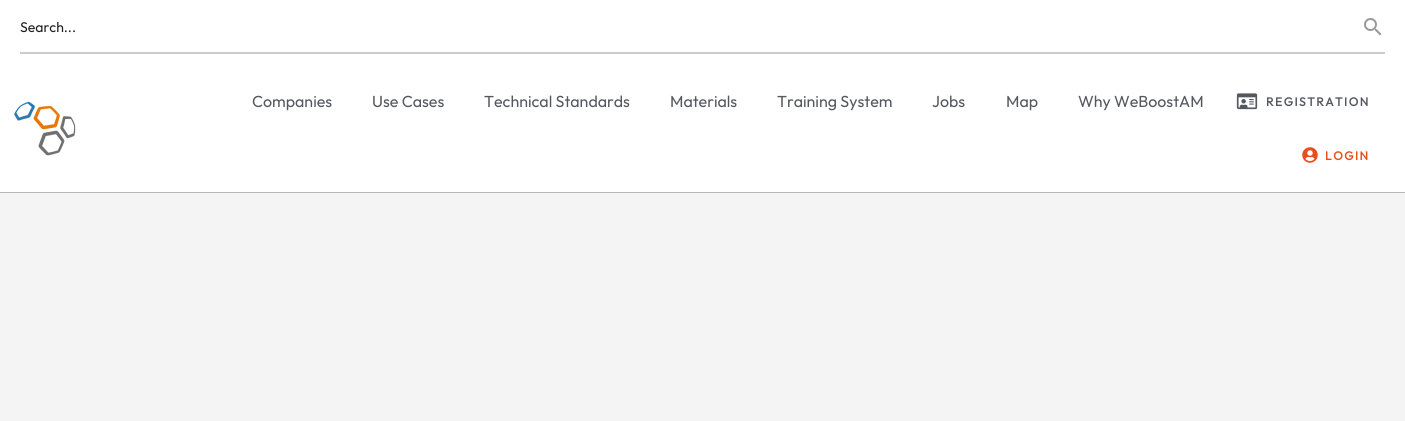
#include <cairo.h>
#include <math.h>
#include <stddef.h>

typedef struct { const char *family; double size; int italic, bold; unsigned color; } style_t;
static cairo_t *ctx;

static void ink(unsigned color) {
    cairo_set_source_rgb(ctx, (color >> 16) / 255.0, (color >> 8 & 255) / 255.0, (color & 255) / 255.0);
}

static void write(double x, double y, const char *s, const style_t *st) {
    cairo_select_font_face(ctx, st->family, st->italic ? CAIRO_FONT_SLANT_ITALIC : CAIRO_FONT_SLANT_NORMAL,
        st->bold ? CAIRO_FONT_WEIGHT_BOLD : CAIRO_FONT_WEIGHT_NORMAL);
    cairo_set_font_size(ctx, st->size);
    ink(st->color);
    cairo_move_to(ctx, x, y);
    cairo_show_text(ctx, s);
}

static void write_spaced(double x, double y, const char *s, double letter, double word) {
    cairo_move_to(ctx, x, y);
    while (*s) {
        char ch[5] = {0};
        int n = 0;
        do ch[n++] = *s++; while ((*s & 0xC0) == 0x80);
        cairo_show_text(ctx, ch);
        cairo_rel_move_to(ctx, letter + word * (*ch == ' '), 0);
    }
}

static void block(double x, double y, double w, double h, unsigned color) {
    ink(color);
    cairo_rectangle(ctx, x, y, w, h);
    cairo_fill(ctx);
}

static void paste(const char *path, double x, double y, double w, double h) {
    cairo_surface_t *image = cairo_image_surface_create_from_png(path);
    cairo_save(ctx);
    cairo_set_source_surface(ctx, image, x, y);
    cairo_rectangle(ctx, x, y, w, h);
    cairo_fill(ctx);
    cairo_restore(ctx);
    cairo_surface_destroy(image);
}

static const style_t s1 = {"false", 14, 0, 0, 0x1d1d23};
static const style_t s2 = {"false", 16, 0, 0, 0x54595f};

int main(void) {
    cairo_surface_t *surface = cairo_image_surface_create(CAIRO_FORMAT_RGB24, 1405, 421);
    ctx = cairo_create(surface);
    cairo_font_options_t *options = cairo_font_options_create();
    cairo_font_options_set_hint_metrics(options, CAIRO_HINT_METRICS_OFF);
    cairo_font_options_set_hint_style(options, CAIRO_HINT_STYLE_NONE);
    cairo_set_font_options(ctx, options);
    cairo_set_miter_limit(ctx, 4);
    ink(0xf4f4f4);
    cairo_paint(ctx);
    block(0, 0, 1405, 192, 0xffffff);
    block(20, 52, 1365, 2, 0xcccccc);
    write(20, 32, "Search...", &s1);
    paste("pic1.png", 1364, 18, 18, 18);
    block(0, 192, 1405, 1, 0xb8b8b8);
    paste("pic2.png", 14, 101, 62, 55);
    write(252, 107, "Companies", &s2);
    write(372, 107, "Use Cases", &s2);
    write(484, 107, "Technical Standards", &s2);
    write(670, 107, "Materials", &s2);
    write(777, 107, "Training System", &s2);
    write(932, 107, "Jobs", &s2);
    write(1006, 107, "Map", &s2);
    write(1078, 107, "Why WeBoostAM", &s2);
    paste("pic3.png", 1236, 93, 22, 17);
    cairo_select_font_face(ctx, "false", CAIRO_FONT_SLANT_NORMAL, CAIRO_FONT_WEIGHT_BOLD);
    cairo_set_font_size(ctx, 12);
    write_spaced(1266, 106, "REGISTRATION", 1.5, 0);
    paste("pic4.png", 1302, 147, 16, 16);
    ink(0xe94e1b);
    write_spaced(1325, 160, "LOGIN", 1.5, 0);
    cairo_surface_write_to_png(surface, "screenshot.png");
    cairo_font_options_destroy(options);
    cairo_destroy(ctx);
    cairo_surface_destroy(surface);
    return 0;
}
